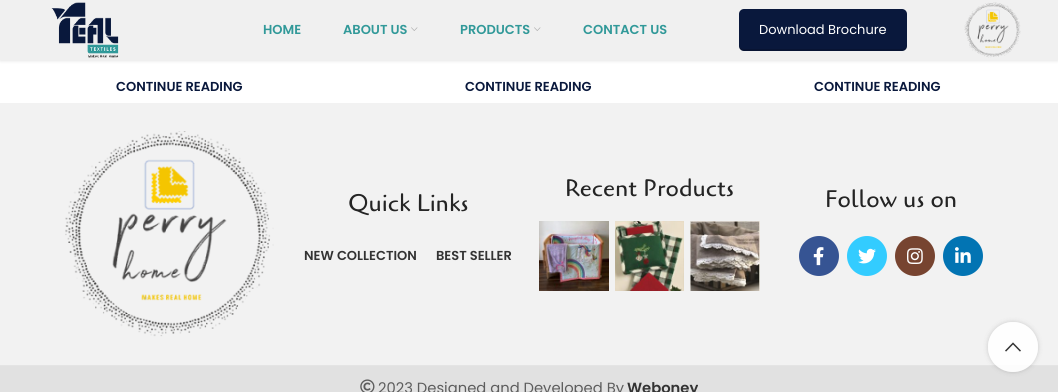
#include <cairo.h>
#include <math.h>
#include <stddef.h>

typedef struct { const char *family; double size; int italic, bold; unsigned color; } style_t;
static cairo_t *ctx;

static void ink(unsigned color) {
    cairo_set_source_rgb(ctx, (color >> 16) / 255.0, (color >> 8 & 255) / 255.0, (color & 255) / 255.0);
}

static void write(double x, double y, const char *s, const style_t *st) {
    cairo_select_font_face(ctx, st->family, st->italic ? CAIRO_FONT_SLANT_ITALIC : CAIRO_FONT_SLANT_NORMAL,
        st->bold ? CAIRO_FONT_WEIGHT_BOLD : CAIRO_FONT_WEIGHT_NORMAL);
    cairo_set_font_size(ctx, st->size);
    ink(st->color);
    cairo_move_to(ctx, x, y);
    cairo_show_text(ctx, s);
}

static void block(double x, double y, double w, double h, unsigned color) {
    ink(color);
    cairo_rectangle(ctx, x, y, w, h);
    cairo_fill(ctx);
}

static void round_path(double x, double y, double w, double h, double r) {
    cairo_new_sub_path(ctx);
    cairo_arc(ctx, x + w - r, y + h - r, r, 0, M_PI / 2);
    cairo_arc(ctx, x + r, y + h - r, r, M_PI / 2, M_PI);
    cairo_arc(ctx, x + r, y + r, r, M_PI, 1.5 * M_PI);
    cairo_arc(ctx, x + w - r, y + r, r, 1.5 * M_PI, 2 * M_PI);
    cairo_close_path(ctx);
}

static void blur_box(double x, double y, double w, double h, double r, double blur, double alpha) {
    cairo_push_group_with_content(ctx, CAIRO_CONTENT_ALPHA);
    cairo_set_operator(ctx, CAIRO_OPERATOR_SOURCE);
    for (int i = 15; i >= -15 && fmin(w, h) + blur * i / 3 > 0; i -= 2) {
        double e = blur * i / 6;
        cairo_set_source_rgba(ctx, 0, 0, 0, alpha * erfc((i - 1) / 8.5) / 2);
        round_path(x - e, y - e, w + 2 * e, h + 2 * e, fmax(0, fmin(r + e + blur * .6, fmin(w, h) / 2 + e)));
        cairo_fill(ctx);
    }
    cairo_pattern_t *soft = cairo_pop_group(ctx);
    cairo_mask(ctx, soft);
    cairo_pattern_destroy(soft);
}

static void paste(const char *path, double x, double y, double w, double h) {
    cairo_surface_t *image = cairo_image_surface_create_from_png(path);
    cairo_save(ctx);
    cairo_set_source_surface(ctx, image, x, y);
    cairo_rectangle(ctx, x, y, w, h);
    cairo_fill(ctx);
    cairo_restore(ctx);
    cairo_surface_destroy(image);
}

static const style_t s1 = {"Poppins SemiBold", 13, 0, 0, 0x319999};
static const style_t s2 = {"Poppins", 13, 0, 0, 0xffffff};
static const style_t s3 = {"Poppins SemiBold", 13, 0, 0, 0x09183c};
static const style_t s4 = {"Cagliostro", 24, 0, 0, 0x242424};
static const style_t s5 = {"Poppins SemiBold", 13, 0, 0, 0x333333};
static const style_t s6 = {"Poppins", 14.75, 0, 0, 0x5d5d5d};
static const style_t s7 = {"Poppins SemiBold", 14.75, 0, 0, 0x333333};

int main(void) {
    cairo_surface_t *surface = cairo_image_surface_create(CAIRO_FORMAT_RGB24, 1058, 392);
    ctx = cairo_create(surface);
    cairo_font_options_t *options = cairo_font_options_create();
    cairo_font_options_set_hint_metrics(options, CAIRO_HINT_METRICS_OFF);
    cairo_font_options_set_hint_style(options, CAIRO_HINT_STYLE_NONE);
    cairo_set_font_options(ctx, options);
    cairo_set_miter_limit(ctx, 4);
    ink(0xffffff);
    cairo_paint(ctx);
    ink(0x000000);
    blur_box(0, 1, 1058, 60, 0, 1.5, 0.1);
    block(0, 0, 1058, 60, 0xf0f0f0);
    paste("pic1.png", 51, 2, 68, 56);
    write(263, 34, "HOME", &s1);
    write(343, 34, "ABOUT US", &s1);
    paste("pic2.png", 411, 27, 7, 4);
    write(460, 34, "PRODUCTS", &s1);
    paste("pic2.png", 534, 27, 7, 4);
    write(583, 34, "CONTACT US", &s1);
    ink(0x09183c);
    round_path(739, 9, 168, 42, 5);
    cairo_fill(ctx);
    cairo_set_source_rgba(ctx, 0, 0, 0, 0.15);
    cairo_new_path(ctx);
    cairo_move_to(ctx, 739, 44);
    cairo_line_to(ctx, 739, 46);
    cairo_curve_to(ctx, 739, 49, 741, 51, 744, 51);
    cairo_line_to(ctx, 902, 51);
    cairo_curve_to(ctx, 905, 51, 907, 49, 907, 46);
    cairo_line_to(ctx, 907, 44);
    cairo_curve_to(ctx, 907, 47, 905, 49, 902, 49);
    cairo_line_to(ctx, 744, 49);
    cairo_curve_to(ctx, 741, 49, 739, 47, 739, 44);
    cairo_close_path(ctx);
    cairo_fill(ctx);
    write(759, 34, "Download Brochure", &s2);
    paste("pic3.png", 964, 2, 57, 56);
    write(116, 91, "CONTINUE READING", &s3);
    write(465, 91, "CONTINUE READING", &s3);
    write(814, 91, "CONTINUE READING", &s3);
    block(0, 103, 1058, 262, 0xf2f2f2);
    paste("pic4.png", 65, 131, 209, 206);
    write(348, 211, "Quick Links", &s4);
    write(304, 260, "NEW COLLECTION", &s5);
    write(436, 260, "BEST SELLER", &s5);
    write(565, 196, "Recent Products", &s4);
    paste("pic5.png", 539, 221, 70, 70);
    paste("pic6.png", 615, 221, 69, 70);
    paste("pic7.png", 690, 221, 70, 70);
    write(825, 207, "Follow us on", &s4);
    ink(0x365493);
    cairo_new_path(ctx);
    cairo_arc(ctx, 819, 256, 20, 0, 2 * M_PI);
    cairo_fill(ctx);
    paste("pic8.png", 813, 247, 11, 19);
    ink(0x33ccff);
    cairo_arc(ctx, 867, 256, 20, 0, 2 * M_PI);
    cairo_fill(ctx);
    paste("pic9.png", 858, 248, 18, 16);
    ink(0x774430);
    cairo_arc(ctx, 915, 256, 20, 0, 2 * M_PI);
    cairo_fill(ctx);
    paste("pic10.png", 907, 248, 16, 16);
    ink(0x0274b3);
    cairo_arc(ctx, 963, 256, 20, 0, 2 * M_PI);
    cairo_fill(ctx);
    paste("pic11.png", 955, 247, 16, 16);
    block(0, 366, 1058, 26, 0xe1e1e1);
    block(0, 365, 1058, 1, 0xe4e4e4);
    paste("pic12.png", 360, 379, 15, 13);
    write(378, 393, "2023 Designed and Developed By", &s6);
    write(627, 393, "Weboney", &s7);
    cairo_save(ctx);
    cairo_set_fill_rule(ctx, CAIRO_FILL_RULE_EVEN_ODD);
    cairo_new_path(ctx);
    cairo_move_to(ctx, 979, 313);
    cairo_line_to(ctx, 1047, 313);
    cairo_line_to(ctx, 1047, 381);
    cairo_line_to(ctx, 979, 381);
    cairo_close_path(ctx);
    cairo_move_to(ctx, 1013, 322);
    cairo_curve_to(ctx, 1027, 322, 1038, 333, 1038, 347);
    cairo_curve_to(ctx, 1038, 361, 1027, 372, 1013, 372);
    cairo_curve_to(ctx, 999, 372, 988, 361, 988, 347);
    cairo_curve_to(ctx, 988, 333, 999, 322, 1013, 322);
    cairo_close_path(ctx);
    cairo_clip(ctx);
    ink(0x000000);
    blur_box(988, 322, 50, 50, 25, 2.5, 0.17);
    cairo_restore(ctx);
    cairo_set_source_rgba(ctx, 1, 1, 1, 0.9);
    cairo_arc(ctx, 1013, 347, 25, 0, 2 * M_PI);
    cairo_fill(ctx);
    paste("pic13.png", 1005, 342, 16, 10);
    cairo_surface_write_to_png(surface, "screenshot.png");
    cairo_font_options_destroy(options);
    cairo_destroy(ctx);
    cairo_surface_destroy(surface);
    return 0;
}
